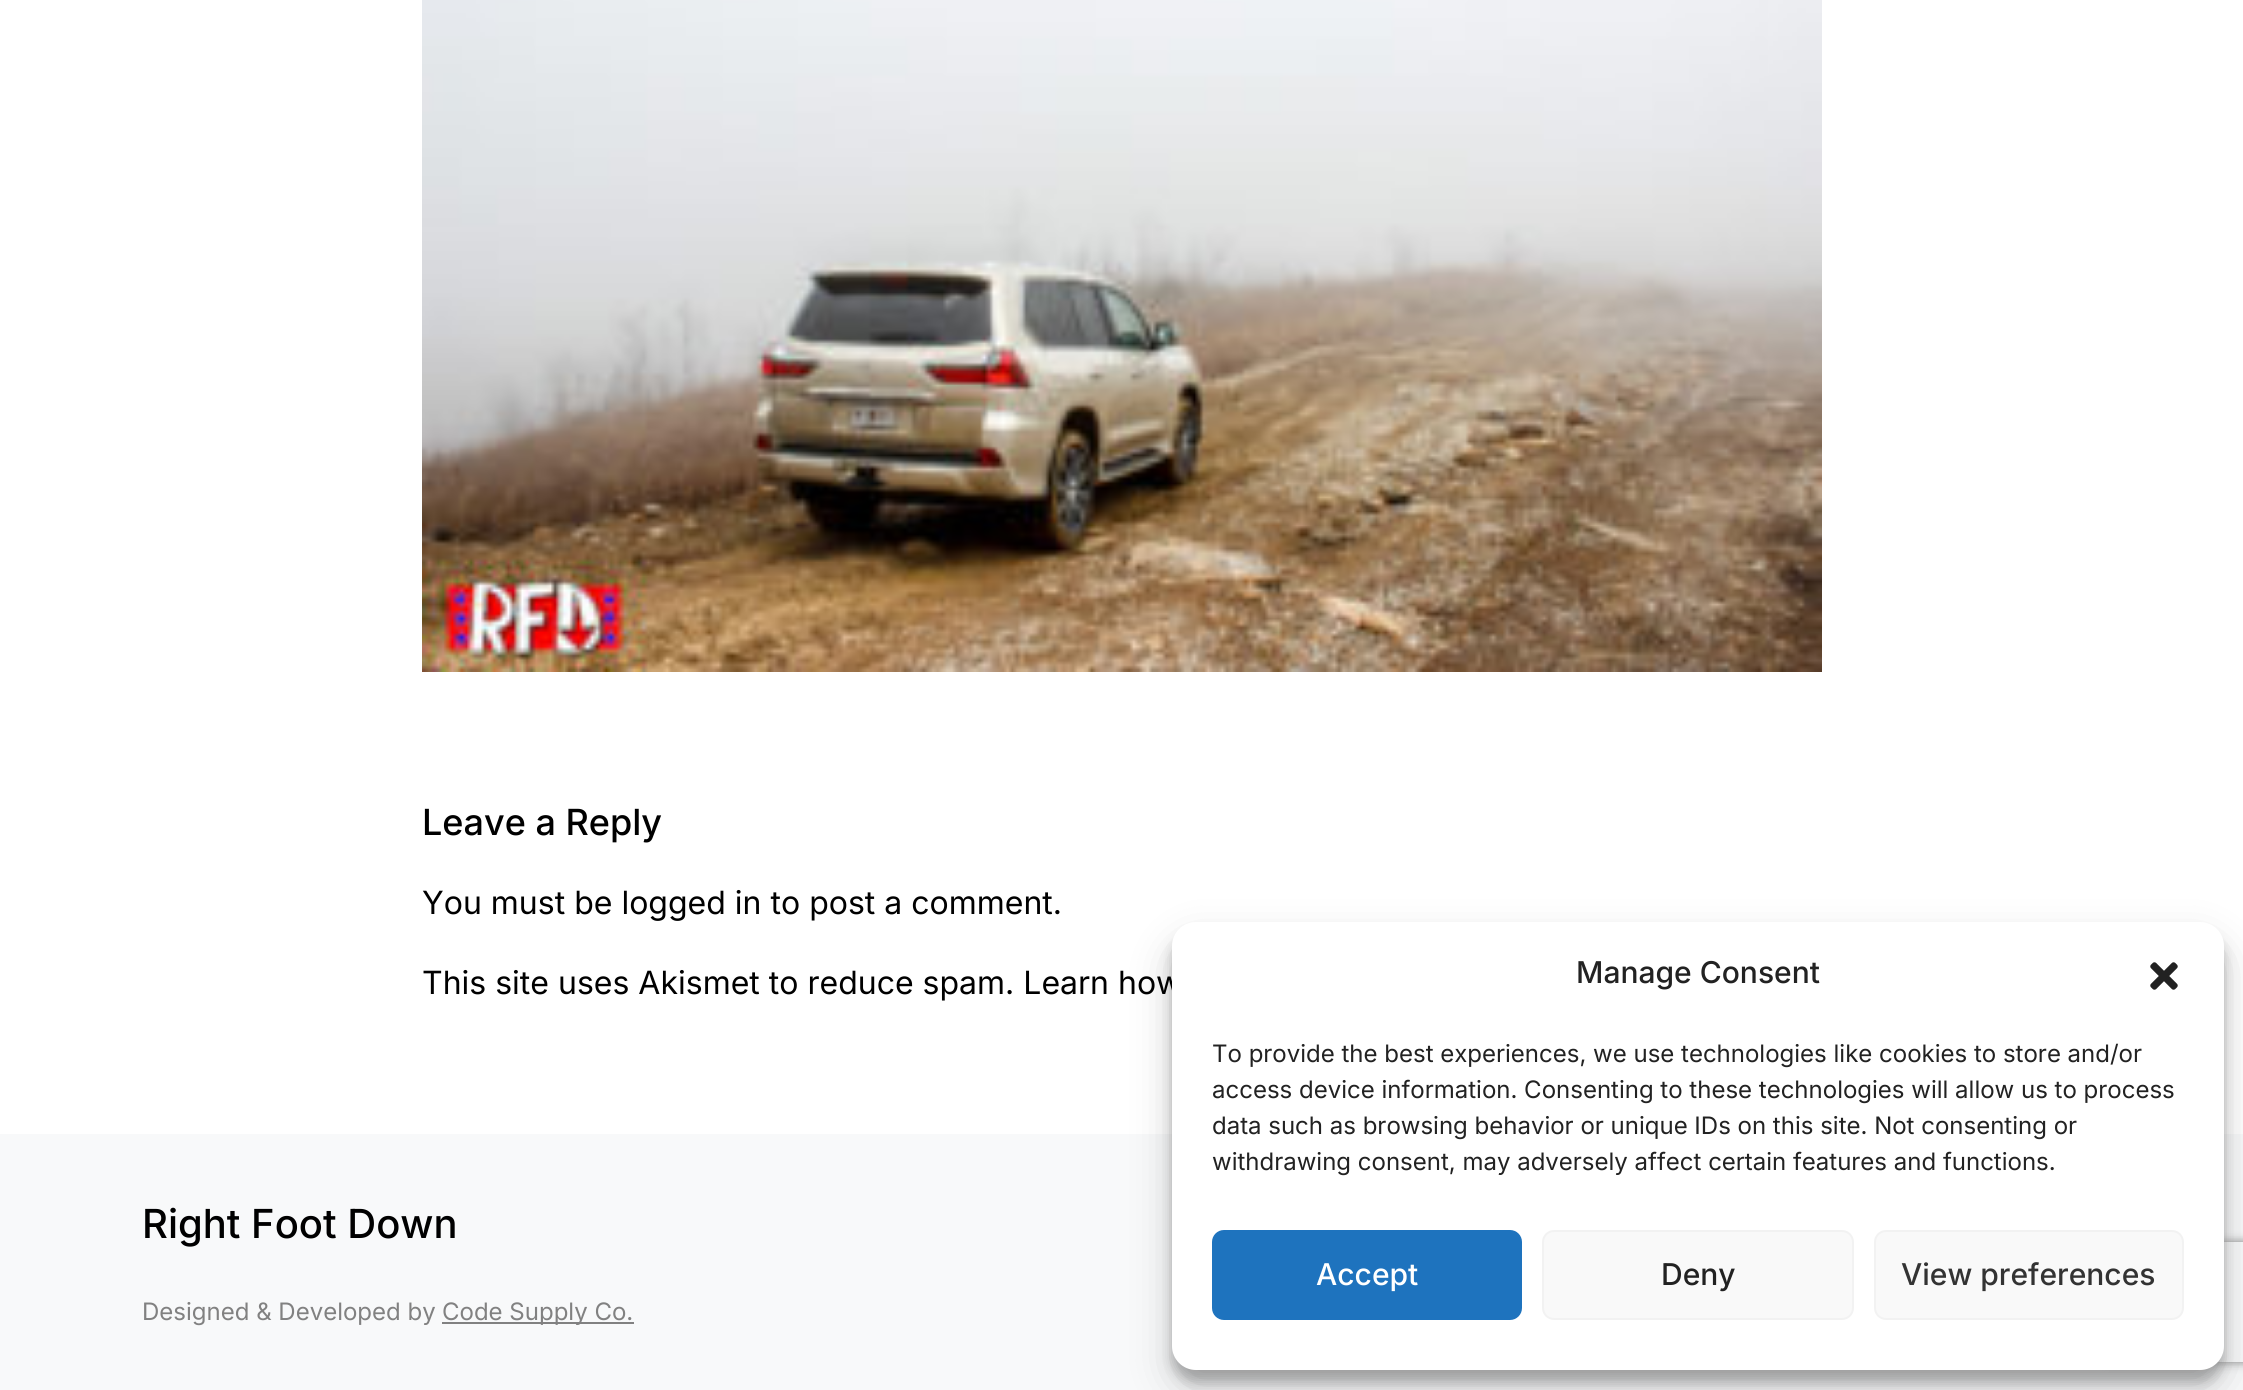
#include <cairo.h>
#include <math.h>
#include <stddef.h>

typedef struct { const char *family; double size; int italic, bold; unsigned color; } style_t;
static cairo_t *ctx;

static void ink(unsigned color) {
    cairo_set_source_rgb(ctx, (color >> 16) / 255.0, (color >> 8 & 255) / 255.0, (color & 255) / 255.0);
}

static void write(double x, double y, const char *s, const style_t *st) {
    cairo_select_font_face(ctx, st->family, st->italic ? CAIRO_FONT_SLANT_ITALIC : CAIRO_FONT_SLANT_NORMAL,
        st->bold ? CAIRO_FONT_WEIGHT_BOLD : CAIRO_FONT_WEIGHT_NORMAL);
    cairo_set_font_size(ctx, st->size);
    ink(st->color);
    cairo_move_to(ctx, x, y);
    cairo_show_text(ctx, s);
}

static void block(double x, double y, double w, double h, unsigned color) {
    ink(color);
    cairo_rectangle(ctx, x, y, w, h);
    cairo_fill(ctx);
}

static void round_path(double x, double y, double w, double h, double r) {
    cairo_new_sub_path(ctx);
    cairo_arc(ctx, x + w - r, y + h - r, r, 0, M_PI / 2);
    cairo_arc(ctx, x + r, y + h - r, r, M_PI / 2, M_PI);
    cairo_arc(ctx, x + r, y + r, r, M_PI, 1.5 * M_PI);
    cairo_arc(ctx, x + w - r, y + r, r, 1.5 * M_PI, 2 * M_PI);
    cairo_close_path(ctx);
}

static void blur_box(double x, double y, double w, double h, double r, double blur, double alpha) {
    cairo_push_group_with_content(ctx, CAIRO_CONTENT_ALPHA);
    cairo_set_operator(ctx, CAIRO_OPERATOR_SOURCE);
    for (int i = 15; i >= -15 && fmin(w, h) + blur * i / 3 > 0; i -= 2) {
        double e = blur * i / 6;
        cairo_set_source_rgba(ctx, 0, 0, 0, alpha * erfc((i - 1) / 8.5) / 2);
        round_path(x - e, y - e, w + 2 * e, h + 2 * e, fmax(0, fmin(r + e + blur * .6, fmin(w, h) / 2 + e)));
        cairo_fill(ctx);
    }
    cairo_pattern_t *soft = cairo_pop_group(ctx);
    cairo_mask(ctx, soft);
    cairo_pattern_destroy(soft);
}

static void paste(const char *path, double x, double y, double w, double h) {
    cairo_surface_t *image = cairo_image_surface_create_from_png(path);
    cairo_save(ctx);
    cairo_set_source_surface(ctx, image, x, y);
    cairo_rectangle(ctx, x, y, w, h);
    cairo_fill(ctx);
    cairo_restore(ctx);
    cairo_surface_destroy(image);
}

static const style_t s1 = {"Inter Medium", 36, 0, 0, 0x000000};
static const style_t s2 = {"Inter", 32, 0, 0, 0x000000};
static const style_t s3 = {"Inter Medium", 40, 0, 0, 0x000000};
static const style_t s4 = {"Inter", 24, 0, 0, 0x818181};
static const style_t s5 = {"Inter Medium", 30, 0, 0, 0x222222};
static const style_t s6 = {"Inter", 24, 0, 0, 0x222222};
static const style_t s7 = {"Inter Medium", 30, 0, 0, 0xffffff};
static const style_t s8 = {"Inter Medium", 30, 0, 0, 0x333333};

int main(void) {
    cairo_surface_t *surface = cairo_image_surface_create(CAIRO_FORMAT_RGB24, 2243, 1390);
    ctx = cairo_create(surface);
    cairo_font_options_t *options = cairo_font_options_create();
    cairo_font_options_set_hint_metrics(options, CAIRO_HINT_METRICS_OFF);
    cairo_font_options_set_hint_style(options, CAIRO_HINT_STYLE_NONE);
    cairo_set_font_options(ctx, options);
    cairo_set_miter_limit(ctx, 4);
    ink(0xffffff);
    cairo_paint(ctx);
    paste("pic1.png", 422, 0, 1400, 672);
    write(422, 835, "Leave a Reply", &s1);
    write(422, 914, "You must be logged in to post a comment.", &s2);
    write(422, 994, "This site uses Akismet to reduce spam. Learn how", &s2);
    block(0, 1134, 2243, 256, 0xf8f9fa);
    write(142, 1238, "Right Foot Down", &s3);
    write(142, 1320, "Designed & Developed by", &s4);
    block(442, 1322, 192, 2, 0x818181);
    write(442, 1320, "Code Supply Co.", &s4);
    ink(0x000000);
    blur_box(1172, 934, 1052, 448, 24, 6, 0.23);
    blur_box(1172, 942, 1052, 448, 24, 20, 0.19);
    cairo_save(ctx);
    cairo_set_fill_rule(ctx, CAIRO_FILL_RULE_EVEN_ODD);
    cairo_new_path(ctx);
    cairo_move_to(ctx, 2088, 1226);
    cairo_line_to(ctx, 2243, 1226);
    cairo_line_to(ctx, 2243, 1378);
    cairo_line_to(ctx, 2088, 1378);
    cairo_close_path(ctx);
    cairo_move_to(ctx, 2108, 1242);
    cairo_line_to(ctx, 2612, 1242);
    cairo_curve_to(ctx, 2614, 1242, 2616, 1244, 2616, 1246);
    cairo_line_to(ctx, 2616, 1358);
    cairo_curve_to(ctx, 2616, 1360, 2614, 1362, 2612, 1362);
    cairo_line_to(ctx, 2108, 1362);
    cairo_curve_to(ctx, 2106, 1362, 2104, 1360, 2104, 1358);
    cairo_line_to(ctx, 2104, 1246);
    cairo_curve_to(ctx, 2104, 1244, 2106, 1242, 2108, 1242);
    cairo_close_path(ctx);
    cairo_clip(ctx);
    ink(0x808080);
    blur_box(2104, 1242, 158, 120, 4, 5, 1);
    cairo_restore(ctx);
    ink(0xffffff);
    round_path(1172, 922, 1052, 448, 24);
    cairo_fill(ctx);
    write(1576, 983, "Manage Consent", &s5);
    paste("pic2.png", 2150, 962, 28, 28);
    write(1212, 1062, "To provide the best experiences, we use technologies like cookies to store and/or", &s6);
    write(1212, 1098, "access device information. Consenting to these technologies will allow us to process", &s6);
    write(1212, 1134, "data such as browsing behavior or unique IDs on this site. Not consenting or", &s6);
    write(1212, 1170, "withdrawing consent, may adversely affect certain features and functions.", &s6);
    ink(0x1e73be);
    round_path(1213, 1231, 308, 88, 11);
    cairo_fill_preserve(ctx);
    cairo_stroke(ctx);
    write(1316, 1285, "Accept", &s7);
    ink(0xf9f9f9);
    round_path(1543, 1231, 310, 88, 11);
    cairo_fill_preserve(ctx);
    ink(0xf2f2f2);
    cairo_stroke(ctx);
    write(1661, 1285, "Deny", &s5);
    ink(0xf9f9f9);
    round_path(1875, 1231, 308, 88, 11);
    cairo_fill_preserve(ctx);
    ink(0xf2f2f2);
    cairo_stroke(ctx);
    write(1901, 1285, "View preferences", &s8);
    cairo_surface_write_to_png(surface, "screenshot.png");
    cairo_font_options_destroy(options);
    cairo_destroy(ctx);
    cairo_surface_destroy(surface);
    return 0;
}
